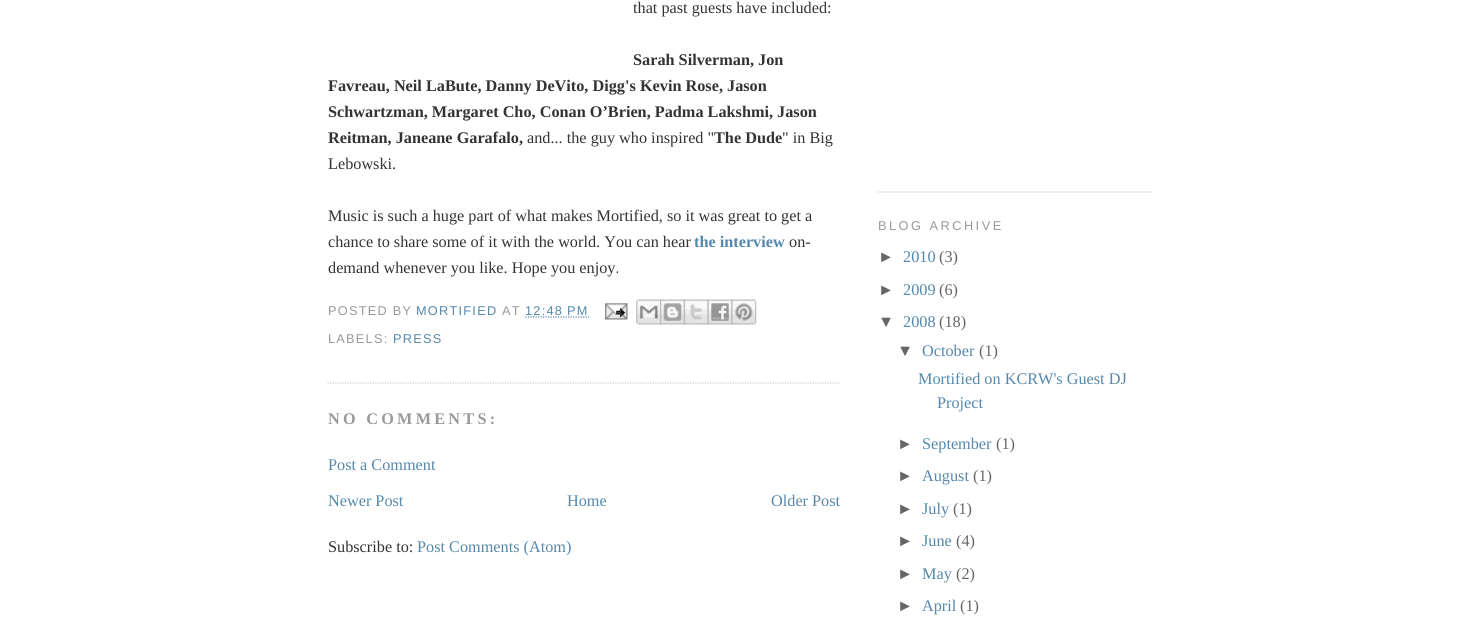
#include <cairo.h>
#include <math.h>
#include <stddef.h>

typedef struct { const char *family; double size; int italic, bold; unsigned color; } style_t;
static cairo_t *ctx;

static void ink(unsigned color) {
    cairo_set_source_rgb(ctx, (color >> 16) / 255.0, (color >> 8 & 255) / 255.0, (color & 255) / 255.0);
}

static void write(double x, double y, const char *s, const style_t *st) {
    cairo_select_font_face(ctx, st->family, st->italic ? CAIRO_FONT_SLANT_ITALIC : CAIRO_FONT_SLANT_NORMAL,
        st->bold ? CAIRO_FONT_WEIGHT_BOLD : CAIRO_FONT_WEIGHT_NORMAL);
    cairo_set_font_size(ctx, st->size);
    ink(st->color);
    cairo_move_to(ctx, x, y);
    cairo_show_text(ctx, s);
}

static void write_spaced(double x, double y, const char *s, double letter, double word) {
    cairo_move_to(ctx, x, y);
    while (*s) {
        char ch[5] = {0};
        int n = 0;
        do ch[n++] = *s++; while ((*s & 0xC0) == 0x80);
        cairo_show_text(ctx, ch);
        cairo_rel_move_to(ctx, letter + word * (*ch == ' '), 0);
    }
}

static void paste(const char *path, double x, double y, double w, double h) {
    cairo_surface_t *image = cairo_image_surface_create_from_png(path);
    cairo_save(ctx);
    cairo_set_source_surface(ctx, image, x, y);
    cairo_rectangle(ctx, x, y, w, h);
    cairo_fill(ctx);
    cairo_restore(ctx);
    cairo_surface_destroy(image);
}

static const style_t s1 = {"Liberation Serif", 16.25, 0, 0, 0x333333};
static const style_t s2 = {"Liberation Serif", 16.25, 0, 1, 0x333333};
static const style_t s3 = {"Liberation Serif", 16.25, 0, 1, 0x5588aa};
static const style_t s4 = {"Liberation Serif", 16.25, 0, 0, 0x5588aa};
static const style_t s5 = {"Liberation Sans", 16.25, 0, 0, 0x666666};
static const style_t s6 = {"Liberation Serif", 16.25, 0, 0, 0x666666};

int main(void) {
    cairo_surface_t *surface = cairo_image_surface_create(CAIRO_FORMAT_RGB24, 1479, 637);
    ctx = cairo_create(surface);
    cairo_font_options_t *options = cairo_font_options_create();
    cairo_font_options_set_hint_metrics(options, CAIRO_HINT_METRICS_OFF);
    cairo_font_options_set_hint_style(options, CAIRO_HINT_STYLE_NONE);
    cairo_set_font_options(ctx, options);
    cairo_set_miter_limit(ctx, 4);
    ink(0xffffff);
    cairo_paint(ctx);
    cairo_new_path(ctx);
    cairo_move_to(ctx, 327.5, 383);
    cairo_line_to(ctx, 840, 383);
    ink(0xcccccc);
    cairo_set_line_width(ctx, 1.2);
    cairo_set_dash(ctx, (double[]){1.25, 1.25}, 2, 0);
    cairo_stroke(ctx);
    write(633, 13, "that past guests have included:", &s1);
    write(633, 65, "Sarah Silverman, Jon", &s2);
    write(328, 91, "Favreau, Neil LaBute, Danny DeVito, Digg's Kevin Rose, Jason", &s2);
    write(328, 117, "Schwartzman, Margaret Cho, Conan O’Brien, Padma Lakshmi, Jason", &s2);
    write(328, 143, "Reitman, Janeane Garafalo,", &s2);
    write(527, 143, "and... the guy who inspired \"", &s1);
    write(714, 143, "The Dude", &s2);
    write(782, 143, "\" in Big", &s1);
    write(328, 169, "Lebowski.", &s1);
    write(328, 221, "Music is such a huge part of what makes Mortified, so it was great to get a", &s1);
    write(328, 247, "chance to share some of it with the world. You can hear", &s1);
    write(694, 247, "the interview", &s3);
    write(789, 247, "on-", &s1);
    write(328, 273, "demand whenever you like. Hope you enjoy.", &s1);
    cairo_select_font_face(ctx, "Liberation Sans", CAIRO_FONT_SLANT_NORMAL, CAIRO_FONT_WEIGHT_NORMAL);
    cairo_set_font_size(ctx, 12.75);
    ink(0x999999);
    write_spaced(328, 315, "POSTED BY", 1.25, 0);
    ink(0x5588aa);
    write_spaced(416, 315, "MORTIFIED", 1.25, 0);
    ink(0x999999);
    write_spaced(502, 315, "AT", 1.25, 0);
    ink(0x5588aa);
    write_spaced(525, 315, "12:48 PM", 1.25, 0);
    cairo_new_path(ctx);
    cairo_move_to(ctx, 525.5, 317);
    cairo_line_to(ctx, 589, 317);
    cairo_stroke(ctx);
    paste("pic1.png", 605, 303, 23, 17);
    paste("pic2.png", 636, 299, 26, 26);
    paste("pic3.png", 660, 299, 25, 26);
    paste("pic4.png", 683, 299, 26, 26);
    paste("pic5.png", 707, 299, 26, 26);
    paste("pic6.png", 731, 299, 26, 26);
    ink(0x999999);
    write_spaced(328, 343, "LABELS:", 1.25, 0);
    ink(0x5588aa);
    write_spaced(393, 343, "PRESS", 1.25, 0);
    cairo_select_font_face(ctx, "Liberation Serif", CAIRO_FONT_SLANT_NORMAL, CAIRO_FONT_WEIGHT_BOLD);
    cairo_set_font_size(ctx, 16.25);
    ink(0x999999);
    write_spaced(328, 424, "NO COMMENTS:", 3.25, 0);
    write(328, 470, "Post a Comment", &s4);
    write(328, 506, "Newer Post", &s4);
    write(567, 506, "Home", &s4);
    write(771, 506, "Older Post", &s4);
    write(328, 552, "Subscribe to:", &s1);
    write(417, 552, "Post Comments (Atom)", &s4);
    cairo_new_path(ctx);
    cairo_move_to(ctx, 877.5, 192);
    cairo_line_to(ctx, 1152.5, 192);
    ink(0xcccccc);
    cairo_stroke(ctx);
    cairo_select_font_face(ctx, "Liberation Sans", CAIRO_FONT_SLANT_NORMAL, CAIRO_FONT_WEIGHT_NORMAL);
    cairo_set_font_size(ctx, 12.75);
    ink(0x999999);
    write_spaced(878, 230, "BLOG ARCHIVE", 2.5, 0);
    write(878, 262, "►", &s5);
    write(903, 262, "2010", &s4);
    write(939, 262, "(3)", &s6);
    write(878, 295, "►", &s5);
    write(903, 295, "2009", &s4);
    write(939, 295, "(6)", &s6);
    write(878, 327, "▼", &s5);
    write(903, 327, "2008", &s4);
    write(939, 327, "(18)", &s6);
    write(897, 356, "▼", &s5);
    write(922, 356, "October", &s4);
    write(979, 356, "(1)", &s6);
    write(918, 384, "Mortified on KCRW's Guest DJ", &s4);
    write(937, 408, "Project", &s4);
    write(897, 449, "►", &s5);
    write(922, 449, "September", &s4);
    write(996, 449, "(1)", &s6);
    write(897, 481, "►", &s5);
    write(922, 481, "August", &s4);
    write(973, 481, "(1)", &s6);
    write(897, 514, "►", &s5);
    write(922, 514, "July", &s4);
    write(953, 514, "(1)", &s6);
    write(897, 546, "►", &s5);
    write(922, 546, "June", &s4);
    write(956, 546, "(4)", &s6);
    write(897, 579, "►", &s5);
    write(922, 579, "May", &s4);
    write(956, 579, "(2)", &s6);
    write(897, 611, "►", &s5);
    write(922, 611, "April", &s4);
    write(960, 611, "(1)", &s6);
    cairo_surface_write_to_png(surface, "screenshot.png");
    cairo_font_options_destroy(options);
    cairo_destroy(ctx);
    cairo_surface_destroy(surface);
    return 0;
}
